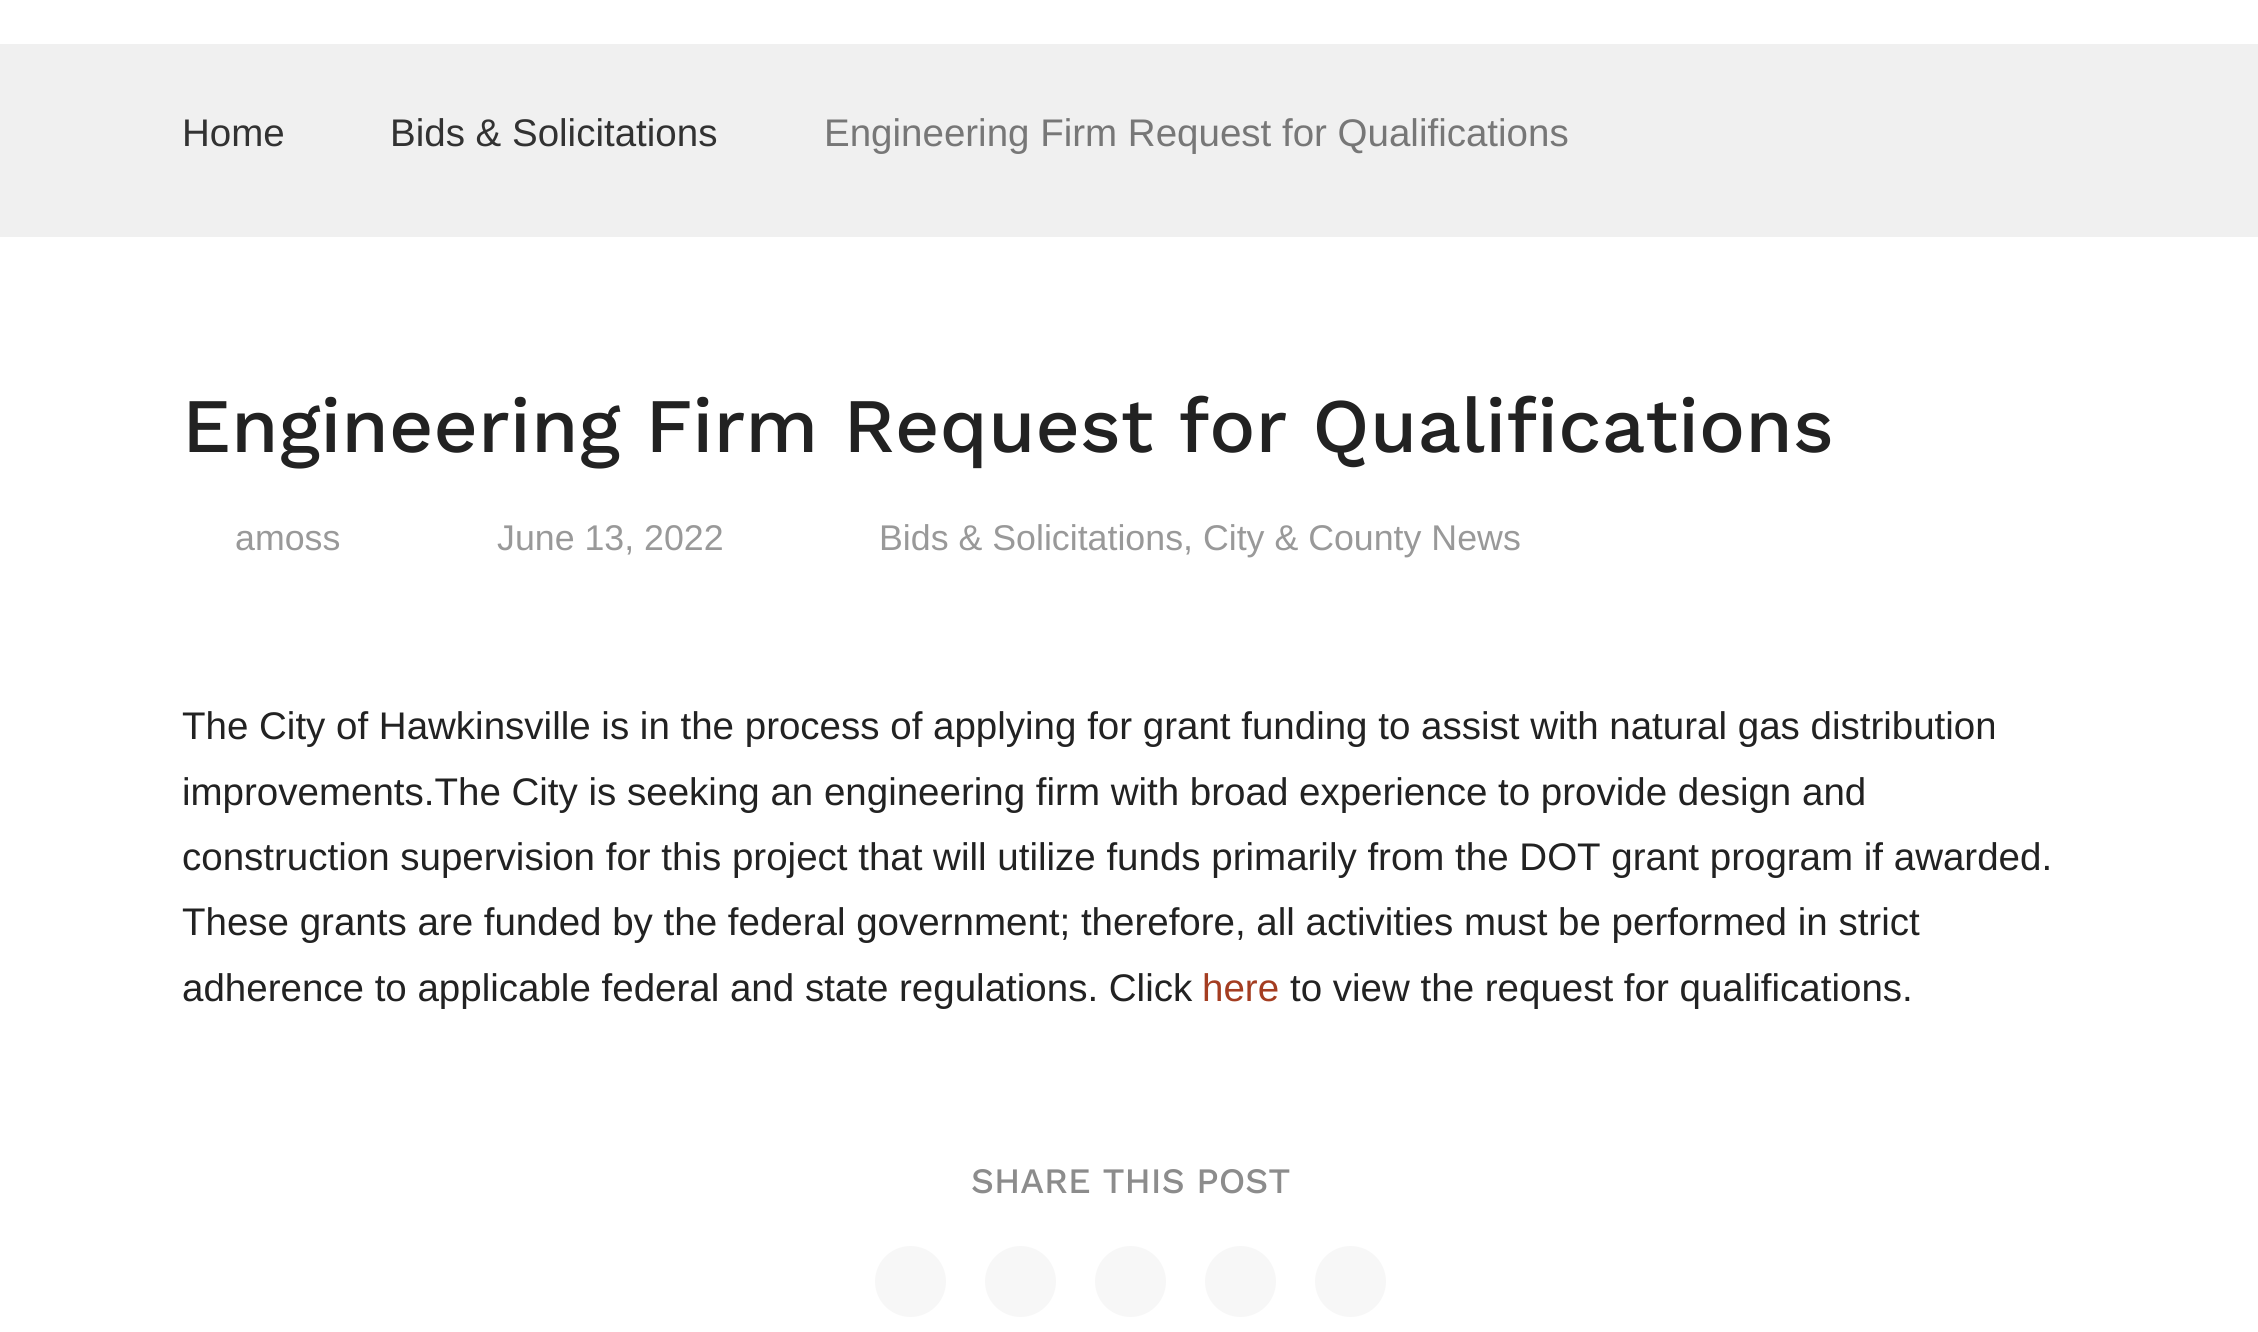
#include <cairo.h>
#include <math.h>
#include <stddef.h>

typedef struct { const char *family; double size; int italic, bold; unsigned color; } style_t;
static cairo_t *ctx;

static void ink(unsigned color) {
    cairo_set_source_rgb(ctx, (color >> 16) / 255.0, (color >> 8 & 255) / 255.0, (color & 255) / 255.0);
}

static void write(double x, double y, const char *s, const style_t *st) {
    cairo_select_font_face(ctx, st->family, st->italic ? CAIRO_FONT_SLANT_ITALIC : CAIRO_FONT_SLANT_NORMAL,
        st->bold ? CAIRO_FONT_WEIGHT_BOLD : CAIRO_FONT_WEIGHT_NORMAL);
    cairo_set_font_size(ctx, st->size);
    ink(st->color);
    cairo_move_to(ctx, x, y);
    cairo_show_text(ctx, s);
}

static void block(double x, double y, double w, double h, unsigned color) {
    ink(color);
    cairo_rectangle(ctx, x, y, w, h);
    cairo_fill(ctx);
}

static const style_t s1 = {"Liberation Sans", 38.5, 0, 0, 0x323232};
static const style_t s2 = {"Liberation Sans", 38.5, 0, 0, 0x777777};
static const style_t s3 = {"Work Sans Medium", 77, 0, 0, 0x222222};
static const style_t s4 = {"Liberation Sans", 35.75, 0, 0, 0x999999};
static const style_t s5 = {"Liberation Sans", 38.5, 0, 0, 0x222222};
static const style_t s6 = {"Liberation Sans", 38.5, 0, 0, 0xa43d21};
static const style_t s7 = {"Work Sans Medium", 35.75, 0, 0, 0x8c8c8c};

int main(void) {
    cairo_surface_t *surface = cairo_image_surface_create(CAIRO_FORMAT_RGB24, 2258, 1332);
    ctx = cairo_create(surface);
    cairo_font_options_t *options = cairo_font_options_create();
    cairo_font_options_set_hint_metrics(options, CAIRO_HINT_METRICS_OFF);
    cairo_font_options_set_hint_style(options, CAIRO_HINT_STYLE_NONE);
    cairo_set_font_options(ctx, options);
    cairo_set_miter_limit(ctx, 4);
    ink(0xffffff);
    cairo_paint(ctx);
    block(0, 44, 2258, 193, 0xf0f0f0);
    write(182, 146, "Home", &s1);
    write(390, 146, "Bids & Solicitations", &s1);
    write(824, 146, "Engineering Firm Request for Qualifications", &s2);
    write(182, 452, "Engineering Firm Request for Qualifications", &s3);
    write(235, 550, "amoss", &s4);
    write(497, 550, "June 13, 2022", &s4);
    write(879, 550, "Bids & Solicitations, City & County News", &s4);
    write(182, 739, "The City of Hawkinsville is in the process of applying for grant funding to assist with natural gas distribution", &s5);
    write(182, 805, "improvements.The City is seeking an engineering firm with broad experience to provide design and", &s5);
    write(182, 870, "construction supervision for this project that will utilize funds primarily from the DOT grant program if awarded.", &s5);
    write(182, 935, "These grants are funded by the federal government; therefore, all activities must be performed in strict", &s5);
    write(182, 1001, "adherence to applicable federal and state regulations. Click", &s5);
    write(1202, 1001, "here", &s6);
    write(1290, 1001, "to view the request for qualifications.", &s5);
    write(971, 1193, "SHARE THIS POST", &s7);
    ink(0xf7f7f7);
    cairo_new_path(ctx);
    cairo_arc(ctx, 910.5, 1281.5, 35.5, 0, 2 * M_PI);
    cairo_fill(ctx);
    cairo_arc(ctx, 1020.5, 1281.5, 35.5, 0, 2 * M_PI);
    cairo_fill(ctx);
    cairo_arc(ctx, 1130.5, 1281.5, 35.5, 0, 2 * M_PI);
    cairo_fill(ctx);
    cairo_arc(ctx, 1240.5, 1281.5, 35.5, 0, 2 * M_PI);
    cairo_fill(ctx);
    cairo_arc(ctx, 1350.5, 1281.5, 35.5, 0, 2 * M_PI);
    cairo_fill(ctx);
    cairo_surface_write_to_png(surface, "screenshot.png");
    cairo_font_options_destroy(options);
    cairo_destroy(ctx);
    cairo_surface_destroy(surface);
    return 0;
}
